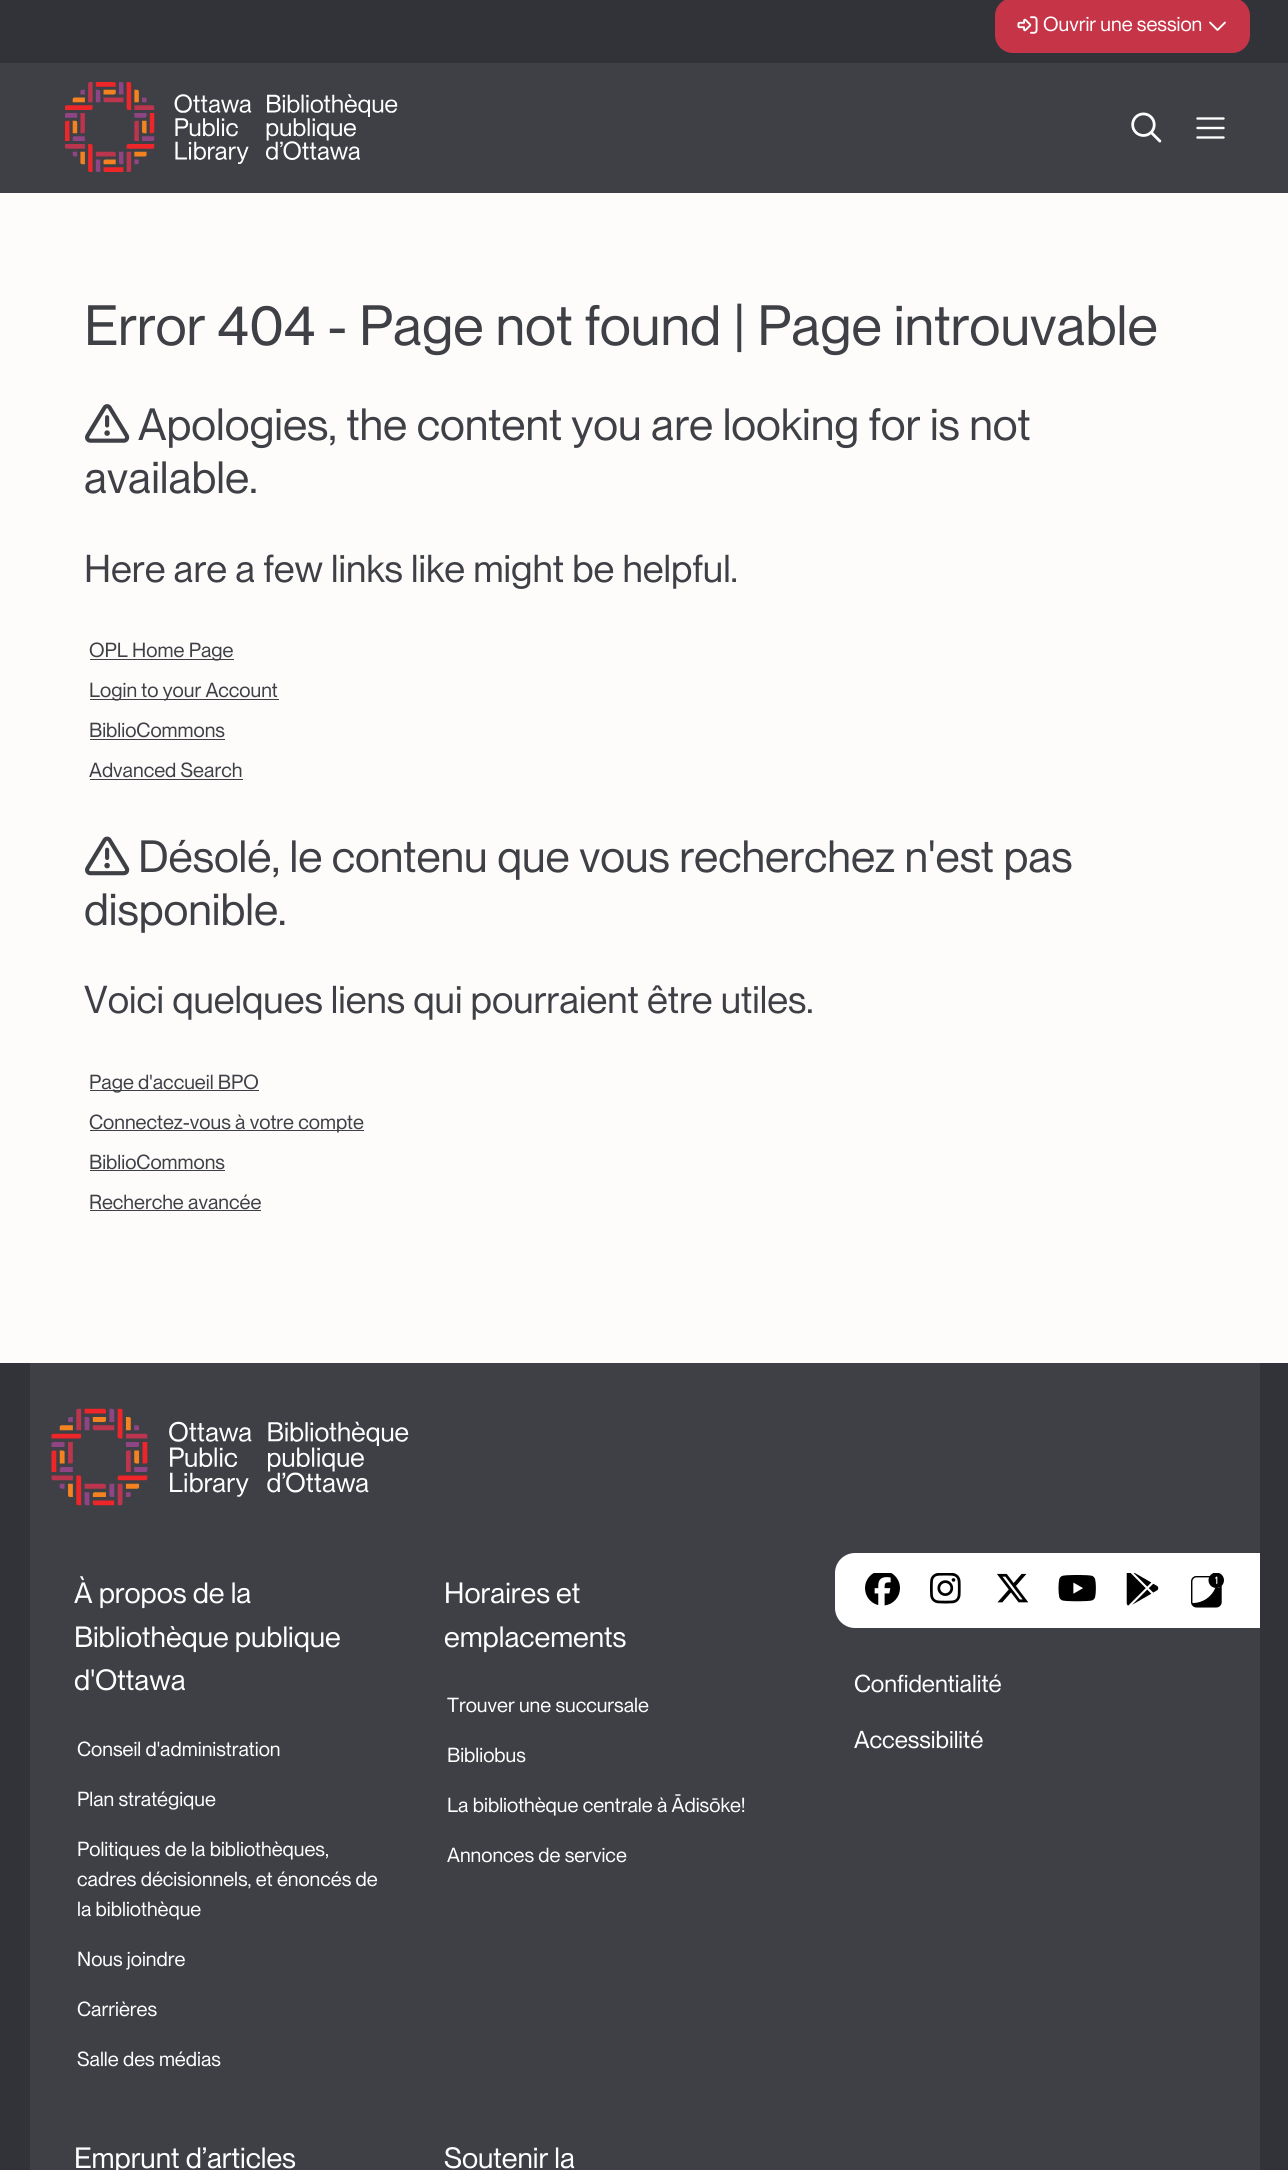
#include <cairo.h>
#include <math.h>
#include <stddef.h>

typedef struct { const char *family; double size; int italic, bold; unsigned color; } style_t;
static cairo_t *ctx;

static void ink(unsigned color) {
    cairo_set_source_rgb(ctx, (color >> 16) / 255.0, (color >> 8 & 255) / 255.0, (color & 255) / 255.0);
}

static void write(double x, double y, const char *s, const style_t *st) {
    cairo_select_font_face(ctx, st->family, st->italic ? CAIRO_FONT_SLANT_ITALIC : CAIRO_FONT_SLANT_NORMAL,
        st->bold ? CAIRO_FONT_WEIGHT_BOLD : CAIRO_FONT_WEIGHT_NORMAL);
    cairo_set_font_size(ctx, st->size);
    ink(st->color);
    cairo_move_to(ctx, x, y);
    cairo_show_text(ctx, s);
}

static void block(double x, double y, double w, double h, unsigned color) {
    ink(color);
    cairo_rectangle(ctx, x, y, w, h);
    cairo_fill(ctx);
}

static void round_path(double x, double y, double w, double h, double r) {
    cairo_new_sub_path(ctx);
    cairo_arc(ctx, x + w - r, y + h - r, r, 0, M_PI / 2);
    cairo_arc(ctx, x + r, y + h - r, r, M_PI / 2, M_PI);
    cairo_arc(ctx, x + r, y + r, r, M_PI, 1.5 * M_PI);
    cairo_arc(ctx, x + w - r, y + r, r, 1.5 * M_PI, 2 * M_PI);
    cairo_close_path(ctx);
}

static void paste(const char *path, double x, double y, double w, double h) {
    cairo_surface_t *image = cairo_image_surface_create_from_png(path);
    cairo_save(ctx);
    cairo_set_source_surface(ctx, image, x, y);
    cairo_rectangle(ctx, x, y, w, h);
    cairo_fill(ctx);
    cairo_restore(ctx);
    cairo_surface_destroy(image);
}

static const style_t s1 = {"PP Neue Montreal", 20, 0, 0, 0xffffff};
static const style_t s2 = {"PP Neue Montreal", 55.6, 0, 0, 0x3e4046};
static const style_t s3 = {"PP Neue Montreal", 44.25, 0, 0, 0x3e4046};
static const style_t s4 = {"PP Neue Montreal", 38.1, 0, 0, 0x3e4046};
static const style_t s5 = {"PP Neue Montreal", 20, 0, 0, 0x3e4046};
static const style_t s6 = {"PP Neue Montreal", 28.75, 0, 0, 0xffffff};
static const style_t s7 = {"PP Neue Montreal", 24, 0, 0, 0xffffff};

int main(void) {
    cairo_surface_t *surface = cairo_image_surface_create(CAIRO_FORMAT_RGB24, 1288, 2170);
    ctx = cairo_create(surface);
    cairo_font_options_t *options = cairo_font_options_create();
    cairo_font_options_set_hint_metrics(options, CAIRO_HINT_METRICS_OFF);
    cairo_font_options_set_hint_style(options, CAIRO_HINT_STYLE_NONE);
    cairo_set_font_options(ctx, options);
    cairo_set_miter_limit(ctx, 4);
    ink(0xfdfcfb);
    cairo_paint(ctx);
    block(0, 0, 1288, 63, 0x323338);
    ink(0xc63547);
    round_path(996.5, -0.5, 252, 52, 16.5);
    cairo_fill_preserve(ctx);
    cairo_set_line_width(ctx, 3);
    cairo_stroke(ctx);
    paste("pic1.png", 1017, 16, 21, 18);
    write(1043, 31, "Ouvrir une session", &s1);
    paste("pic2.png", 1209, 21, 17, 10);
    block(0, 63, 1288, 130, 0x3e4046);
    paste("pic3.png", 65, 82, 333, 90);
    paste("pic4.png", 1131, 112, 31, 31);
    cairo_new_path(ctx);
    cairo_move_to(ctx, 1197.5, 118.5);
    cairo_line_to(ctx, 1223.5, 118.5);
    cairo_move_to(ctx, 1197.5, 128);
    cairo_line_to(ctx, 1223.5, 128);
    cairo_move_to(ctx, 1197.5, 137.5);
    cairo_line_to(ctx, 1223.5, 137.5);
    ink(0xffffff);
    cairo_set_line_width(ctx, 2.4);
    cairo_set_line_cap(ctx, CAIRO_LINE_CAP_ROUND);
    cairo_stroke(ctx);
    write(84, 345, "Error 404 - Page not found | Page introuvable", &s2);
    paste("pic5.png", 85, 404, 45, 39);
    write(138, 440, "Apologies, the content you are looking for is not", &s3);
    write(84, 493, "available.", &s3);
    write(84, 582, "Here are a few links like might be helpful.", &s4);
    block(90, 659, 144, 1, 0x3e4046);
    write(89, 657, "OPL Home Page", &s5);
    block(90, 699, 189, 1, 0x3e4046);
    write(89, 697, "Login to your Account", &s5);
    write(89, 737, "BiblioCommons", &s5);
    block(90, 739, 135, 1, 0x3e4046);
    write(89, 777, "Advanced Search", &s5);
    block(90, 779, 153, 1, 0x3e4046);
    paste("pic6.png", 85, 836, 45, 40);
    write(138, 872, "Désolé, le contenu que vous recherchez n'est pas", &s3);
    write(84, 925, "disponible.", &s3);
    write(84, 1013, "Voici quelques liens qui pourraient être utiles.", &s4);
    block(90, 1090, 169, 1, 0x3e4046);
    write(89, 1089, "Page d'accueil BPO", &s5);
    block(90, 1130, 274, 1, 0x3e4046);
    write(89, 1129, "Connectez-vous à votre compte", &s5);
    write(89, 1169, "BiblioCommons", &s5);
    block(90, 1170, 135, 1, 0x3e4046);
    write(89, 1209, "Recherche avancée", &s5);
    block(90, 1210, 171, 1, 0x3e4046);
    block(0, 1363, 1288, 807, 0x323338);
    block(30, 1363, 1230, 807, 0x3e4046);
    paste("pic7.png", 51, 1408, 358, 98);
    write(74, 1603, "À propos de la", &s6);
    write(74, 1647, "Bibliothèque publique", &s6);
    write(74, 1690, "d'Ottawa", &s6);
    write(77, 1756, "Conseil d'administration", &s1);
    write(77, 1806, "Plan stratégique", &s1);
    write(77, 1856, "Politiques de la bibliothèques,", &s1);
    write(77, 1886, "cadres décisionnels, et énoncés de", &s1);
    write(77, 1916, "la bibliothèque", &s1);
    write(77, 1966, "Nous joindre", &s1);
    write(77, 2016, "Carrières", &s1);
    write(77, 2066, "Salle des médias", &s1);
    write(444, 1603, "Horaires et", &s6);
    write(444, 1647, "emplacements", &s6);
    write(447, 1712, "Trouver une succursale", &s1);
    write(447, 1762, "Bibliobus", &s1);
    write(447, 1812, "La bibliothèque centrale à Ādisōke!", &s1);
    write(447, 1862, "Annonces de service", &s1);
    write(74, 2168, "Emprunt d’articles", &s6);
    write(444, 2168, "Soutenir la", &s6);
    cairo_new_path(ctx);
    cairo_move_to(ctx, 855, 1553);
    cairo_line_to(ctx, 1260, 1553);
    cairo_line_to(ctx, 1260, 1628);
    cairo_line_to(ctx, 855, 1628);
    cairo_curve_to(ctx, 844, 1628, 835, 1619, 835, 1608);
    cairo_line_to(ctx, 835, 1573);
    cairo_curve_to(ctx, 835, 1562, 844, 1553, 855, 1553);
    cairo_close_path(ctx);
    cairo_fill(ctx);
    paste("pic8.png", 865, 1573, 35, 33);
    paste("pic9.png", 930, 1573, 31, 31);
    paste("pic10.png", 997, 1573, 32, 30);
    paste("pic11.png", 1058, 1575, 38, 27);
    paste("pic12.png", 1126, 1573, 33, 33);
    paste("pic13.png", 1191, 1573, 33, 35);
    write(854, 1692, "Confidentialité", &s7);
    write(854, 1748, "Accessibilité", &s7);
    cairo_surface_write_to_png(surface, "screenshot.png");
    cairo_font_options_destroy(options);
    cairo_destroy(ctx);
    cairo_surface_destroy(surface);
    return 0;
}
